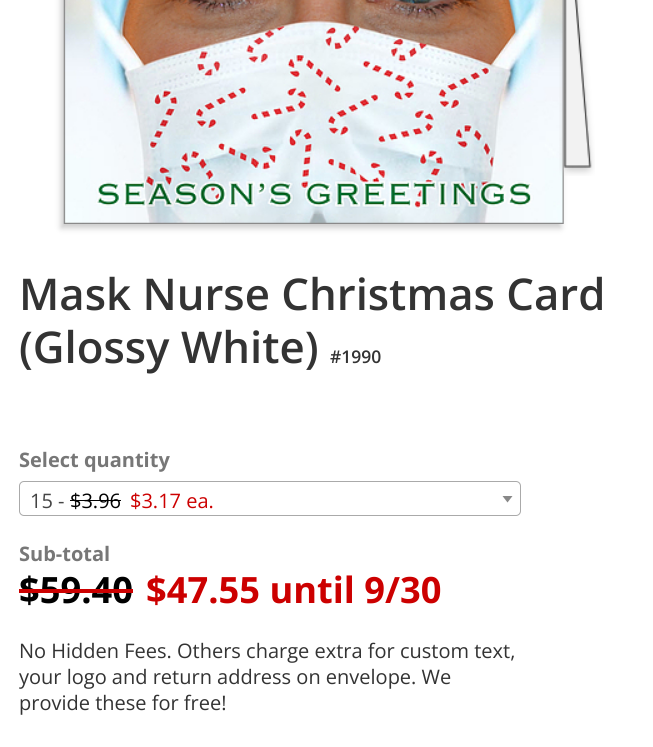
#include <cairo.h>
#include <math.h>
#include <stddef.h>

typedef struct { const char *family; double size; int italic, bold; unsigned color; } style_t;
static cairo_t *ctx;

static void ink(unsigned color) {
    cairo_set_source_rgb(ctx, (color >> 16) / 255.0, (color >> 8 & 255) / 255.0, (color & 255) / 255.0);
}

static void write(double x, double y, const char *s, const style_t *st) {
    cairo_select_font_face(ctx, st->family, st->italic ? CAIRO_FONT_SLANT_ITALIC : CAIRO_FONT_SLANT_NORMAL,
        st->bold ? CAIRO_FONT_WEIGHT_BOLD : CAIRO_FONT_WEIGHT_NORMAL);
    cairo_set_font_size(ctx, st->size);
    ink(st->color);
    cairo_move_to(ctx, x, y);
    cairo_show_text(ctx, s);
}

static void block(double x, double y, double w, double h, unsigned color) {
    ink(color);
    cairo_rectangle(ctx, x, y, w, h);
    cairo_fill(ctx);
}

static void round_path(double x, double y, double w, double h, double r) {
    cairo_new_sub_path(ctx);
    cairo_arc(ctx, x + w - r, y + h - r, r, 0, M_PI / 2);
    cairo_arc(ctx, x + r, y + h - r, r, M_PI / 2, M_PI);
    cairo_arc(ctx, x + r, y + r, r, M_PI, 1.5 * M_PI);
    cairo_arc(ctx, x + w - r, y + r, r, 1.5 * M_PI, 2 * M_PI);
    cairo_close_path(ctx);
}

static void blur_box(double x, double y, double w, double h, double r, double blur, double alpha) {
    cairo_push_group_with_content(ctx, CAIRO_CONTENT_ALPHA);
    cairo_set_operator(ctx, CAIRO_OPERATOR_SOURCE);
    for (int i = 15; i >= -15 && fmin(w, h) + blur * i / 3 > 0; i -= 2) {
        double e = blur * i / 6;
        cairo_set_source_rgba(ctx, 0, 0, 0, alpha * erfc((i - 1) / 8.5) / 2);
        round_path(x - e, y - e, w + 2 * e, h + 2 * e, fmax(0, fmin(r + e + blur * .6, fmin(w, h) / 2 + e)));
        cairo_fill(ctx);
    }
    cairo_pattern_t *soft = cairo_pop_group(ctx);
    cairo_mask(ctx, soft);
    cairo_pattern_destroy(soft);
}

static void paste(const char *path, double x, double y, double w, double h) {
    cairo_surface_t *image = cairo_image_surface_create_from_png(path);
    cairo_save(ctx);
    cairo_set_source_surface(ctx, image, x, y);
    cairo_rectangle(ctx, x, y, w, h);
    cairo_fill(ctx);
    cairo_restore(ctx);
    cairo_surface_destroy(image);
}

static const style_t s1 = {"Open Sans SemiBold", 43.75, 0, 0, 0x333333};
static const style_t s2 = {"Open Sans SemiBold", 17.5, 0, 0, 0x333333};
static const style_t s3 = {"Open Sans", 20, 0, 1, 0x777777};
static const style_t s4 = {"Open Sans", 20, 0, 0, 0x444444};
static const style_t s5 = {"Open Sans", 20, 0, 0, 0x000000};
static const style_t s6 = {"Open Sans", 20, 0, 0, 0xcc0000};
static const style_t s7 = {"Open Sans", 36.25, 0, 1, 0x000000};
static const style_t s8 = {"Open Sans", 36.25, 0, 1, 0xcc0000};
static const style_t s9 = {"Open Sans", 20, 0, 0, 0x333333};

int main(void) {
    cairo_surface_t *surface = cairo_image_surface_create(CAIRO_FORMAT_RGB24, 653, 747);
    ctx = cairo_create(surface);
    cairo_font_options_t *options = cairo_font_options_create();
    cairo_font_options_set_hint_metrics(options, CAIRO_HINT_METRICS_OFF);
    cairo_font_options_set_hint_style(options, CAIRO_HINT_STYLE_NONE);
    cairo_set_font_options(ctx, options);
    cairo_set_miter_limit(ctx, 4);
    ink(0xffffff);
    cairo_paint(ctx);
    ink(0xcccccc);
    blur_box(61, -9, 500, 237, 0, 3, 1);
    paste("pic1.png", 63, 0, 501, 224);
    paste("pic2.png", 559, 0, 36, 176);
    write(19, 310, "Mask Nurse Christmas Card", &s1);
    write(19, 363, "(Glossy White)", &s1);
    write(330, 363, "#1990", &s2);
    write(19, 467, "Select quantity", &s3);
    round_path(19.5, 481.5, 501, 34, 4.5);
    ink(0xaaaaaa);
    cairo_set_line_width(ctx, 1);
    cairo_stroke(ctx);
    write(30, 508, "15 -", &s4);
    write(70, 508, "$3.96", &s5);
    block(70, 500, 51, 1, 0x000000);
    write(130, 508, "$3.17 ea.", &s6);
    ink(0x888888);
    cairo_new_path(ctx);
    cairo_move_to(ctx, 502.5, 496);
    cairo_line_to(ctx, 512.5, 496);
    cairo_line_to(ctx, 507.5, 502.5);
    cairo_close_path(ctx);
    cairo_fill(ctx);
    write(19, 561, "Sub-total", &s3);
    write(19, 603, "$59.40", &s7);
    block(19, 589, 114, 4, 0xcc0000);
    write(146, 603, "$47.55 until 9/30", &s8);
    write(19, 658, "No Hidden Fees. Others charge extra for custom text,", &s9);
    write(19, 684, "your logo and return address on envelope. We", &s9);
    write(19, 710, "provide these for free!", &s9);
    cairo_surface_write_to_png(surface, "screenshot.png");
    cairo_font_options_destroy(options);
    cairo_destroy(ctx);
    cairo_surface_destroy(surface);
    return 0;
}
